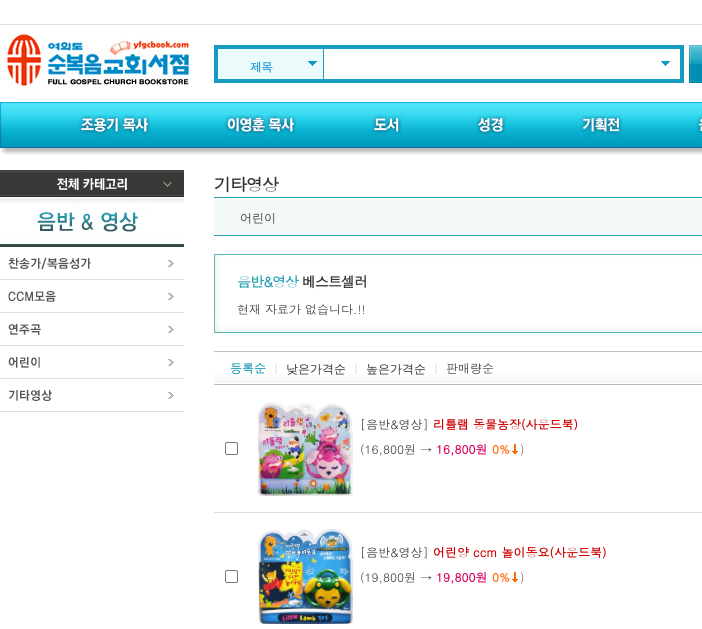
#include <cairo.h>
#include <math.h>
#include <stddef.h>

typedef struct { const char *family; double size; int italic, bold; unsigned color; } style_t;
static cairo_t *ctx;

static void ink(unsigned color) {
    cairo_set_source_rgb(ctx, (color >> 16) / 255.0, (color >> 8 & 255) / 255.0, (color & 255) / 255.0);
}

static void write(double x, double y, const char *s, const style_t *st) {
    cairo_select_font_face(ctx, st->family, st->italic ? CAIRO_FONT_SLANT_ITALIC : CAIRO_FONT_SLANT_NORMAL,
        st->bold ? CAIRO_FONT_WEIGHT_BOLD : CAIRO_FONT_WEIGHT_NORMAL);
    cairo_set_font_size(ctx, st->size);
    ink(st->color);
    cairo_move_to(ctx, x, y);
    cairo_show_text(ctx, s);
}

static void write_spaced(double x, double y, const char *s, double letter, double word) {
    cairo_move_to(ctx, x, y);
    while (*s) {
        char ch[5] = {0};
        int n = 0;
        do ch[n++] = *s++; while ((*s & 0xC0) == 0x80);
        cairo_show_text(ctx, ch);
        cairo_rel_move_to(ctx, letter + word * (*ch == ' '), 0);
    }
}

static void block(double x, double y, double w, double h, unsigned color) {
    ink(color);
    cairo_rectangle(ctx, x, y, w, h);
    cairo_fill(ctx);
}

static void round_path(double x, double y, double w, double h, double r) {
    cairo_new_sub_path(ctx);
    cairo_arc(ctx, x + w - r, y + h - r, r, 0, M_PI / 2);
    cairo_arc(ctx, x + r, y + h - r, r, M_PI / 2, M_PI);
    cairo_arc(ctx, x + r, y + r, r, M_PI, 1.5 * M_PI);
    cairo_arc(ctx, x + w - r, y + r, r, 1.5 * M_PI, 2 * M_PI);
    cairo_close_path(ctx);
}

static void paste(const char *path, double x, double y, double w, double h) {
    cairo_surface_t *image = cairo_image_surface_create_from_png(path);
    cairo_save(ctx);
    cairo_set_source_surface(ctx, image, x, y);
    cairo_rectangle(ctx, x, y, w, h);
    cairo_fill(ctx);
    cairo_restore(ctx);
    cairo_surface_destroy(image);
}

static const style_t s1 = {"WenQuanYi Zen Hei Medium", 12, 0, 0, 0x444444};
static const style_t s2 = {"Dotum", 12, 0, 0, 0x3e3e3e};
static const style_t s3 = {"Dotum", 12, 0, 1, 0x29a1b6};
static const style_t s4 = {"Dotum", 12, 0, 0, 0xcccccc};
static const style_t s5 = {"WenQuanYi Zen Hei Medium", 12, 0, 0, 0x333333};
static const style_t s6 = {"Dotum", 12, 0, 0, 0x333333};
static const style_t s7 = {"Dotum", 12, 0, 1, 0xcc0000};
static const style_t s8 = {"Dotum", 12, 0, 1, 0xda035f};
static const style_t s9 = {"Dotum", 12, 0, 1, 0xff6600};
static const style_t s10 = {"Dotum", 12, 0, 0, 0x666666};

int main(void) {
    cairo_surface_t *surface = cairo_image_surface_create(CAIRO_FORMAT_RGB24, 702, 629);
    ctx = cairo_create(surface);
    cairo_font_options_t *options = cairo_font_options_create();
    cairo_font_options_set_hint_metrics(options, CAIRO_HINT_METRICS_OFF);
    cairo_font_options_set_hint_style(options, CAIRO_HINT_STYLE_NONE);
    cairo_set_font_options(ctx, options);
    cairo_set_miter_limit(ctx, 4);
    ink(0xffffff);
    cairo_paint(ctx);
    block(0, 24, 702, 1, 0xdfdfdf);
    paste("pic1.png", 0, 33, 192, 56);
    block(214, 45, 470, 38, 0x179bc1);
    block(324, 49, 356, 30, 0xffffff);
    block(218, 49, 105, 30, 0xebfafa);
    cairo_select_font_face(ctx, "Dotum", CAIRO_FONT_SLANT_NORMAL, CAIRO_FONT_WEIGHT_BOLD);
    cairo_set_font_size(ctx, 12);
    ink(0x2f9ddc);
    write_spaced(250, 72, "제목", -1, 0);
    paste("pic2.png", 308, 61, 9, 5);
    paste("pic3.png", 689, 45, 13, 38);
    paste("pic4.png", 661, 60, 9, 7);
    paste("pic5.png", 0, 102, 41, 46);
    paste("pic6.png", 41, 102, 147, 46);
    paste("pic7.png", 188, 102, 146, 46);
    paste("pic8.png", 334, 102, 104, 46);
    paste("pic9.png", 438, 102, 105, 46);
    paste("pic10.png", 543, 102, 116, 46);
    paste("pic11.png", 659, 102, 43, 46);
    paste("pic12.png", 0, 148, 702, 7);
    paste("pic13.png", 0, 170, 184, 27);
    paste("pic14.png", 0, 198, 184, 49);
    paste("pic15.png", 8, 257, 166, 13);
    block(0, 279, 184, 1, 0xdedede);
    paste("pic16.png", 8, 291, 166, 11);
    block(0, 312, 184, 1, 0xdedede);
    paste("pic17.png", 8, 324, 166, 11);
    block(0, 345, 184, 1, 0xdedede);
    paste("pic18.png", 8, 357, 166, 11);
    block(0, 378, 184, 1, 0xdedede);
    paste("pic19.png", 8, 390, 166, 11);
    block(0, 411, 184, 1, 0xdedede);
    cairo_set_font_size(ctx, 17);
    ink(0x333333);
    write_spaced(214, 191, "기타영상", -1, 0);
    block(214, 197, 488, 1, 0x29a1b6);
    block(214, 198, 488, 37, 0xf4fafa);
    write(240, 222, "어린이", &s1);
    block(214, 235, 488, 1, 0x29a1b6);
    paste("pic20.png", 214, 262, 8, 56);
    paste("pic21.png", 214, 254, 488, 8);
    cairo_select_font_face(ctx, "Dotum", CAIRO_FONT_SLANT_NORMAL, CAIRO_FONT_WEIGHT_BOLD);
    cairo_set_font_size(ctx, 14);
    write_spaced(237, 287, "음반&영상", -1, 0);
    ink(0x333333);
    write_spaced(302, 287, "베스트셀러", -1, 0);
    write(237, 314, "현재 자료가 없습니다.!!", &s2);
    paste("pic22.png", 214, 318, 488, 15);
    paste("pic23.png", 214, 351, 488, 34);
    write(230, 373, "등록순", &s3);
    write(270, 373, "ㅣ", &s4);
    write(286, 373, "낮은가격순", &s5);
    write(350, 373, "ㅣ", &s4);
    write(366, 373, "높은가격순", &s5);
    write(430, 373, "ㅣ", &s4);
    write(446, 373, "판매량순", &s6);
    round_path(225.5, 442.5, 12, 12, 1.5);
    ink(0x767676);
    cairo_set_line_width(ctx, 1);
    cairo_stroke(ctx);
    paste("pic24.png", 258, 401, 95, 95);
    write(360, 429, "[음반&영상]", &s6);
    write(433, 429, "리틀램 동물농장(사운드북)", &s7);
    write(360, 454, "(16,800원 →", &s2);
    write(436, 454, "16,800원", &s8);
    write(492, 454, "0%", &s9);
    paste("pic25.png", 510, 444, 8, 10);
    write(520, 454, ")", &s10);
    block(214, 512, 488, 1, 0xdddddd);
    round_path(225.5, 570.5, 12, 12, 1.5);
    ink(0x767676);
    cairo_stroke(ctx);
    paste("pic26.png", 258, 529, 95, 95);
    write(360, 557, "[음반&영상]", &s6);
    write(433, 557, "어린양 ccm 놀이동요(사운드북)", &s7);
    write(360, 582, "(19,800원 →", &s2);
    write(436, 582, "19,800원", &s8);
    write(492, 582, "0%", &s9);
    paste("pic25.png", 510, 572, 8, 10);
    write(520, 582, ")", &s10);
    cairo_surface_write_to_png(surface, "screenshot.png");
    cairo_font_options_destroy(options);
    cairo_destroy(ctx);
    cairo_surface_destroy(surface);
    return 0;
}
